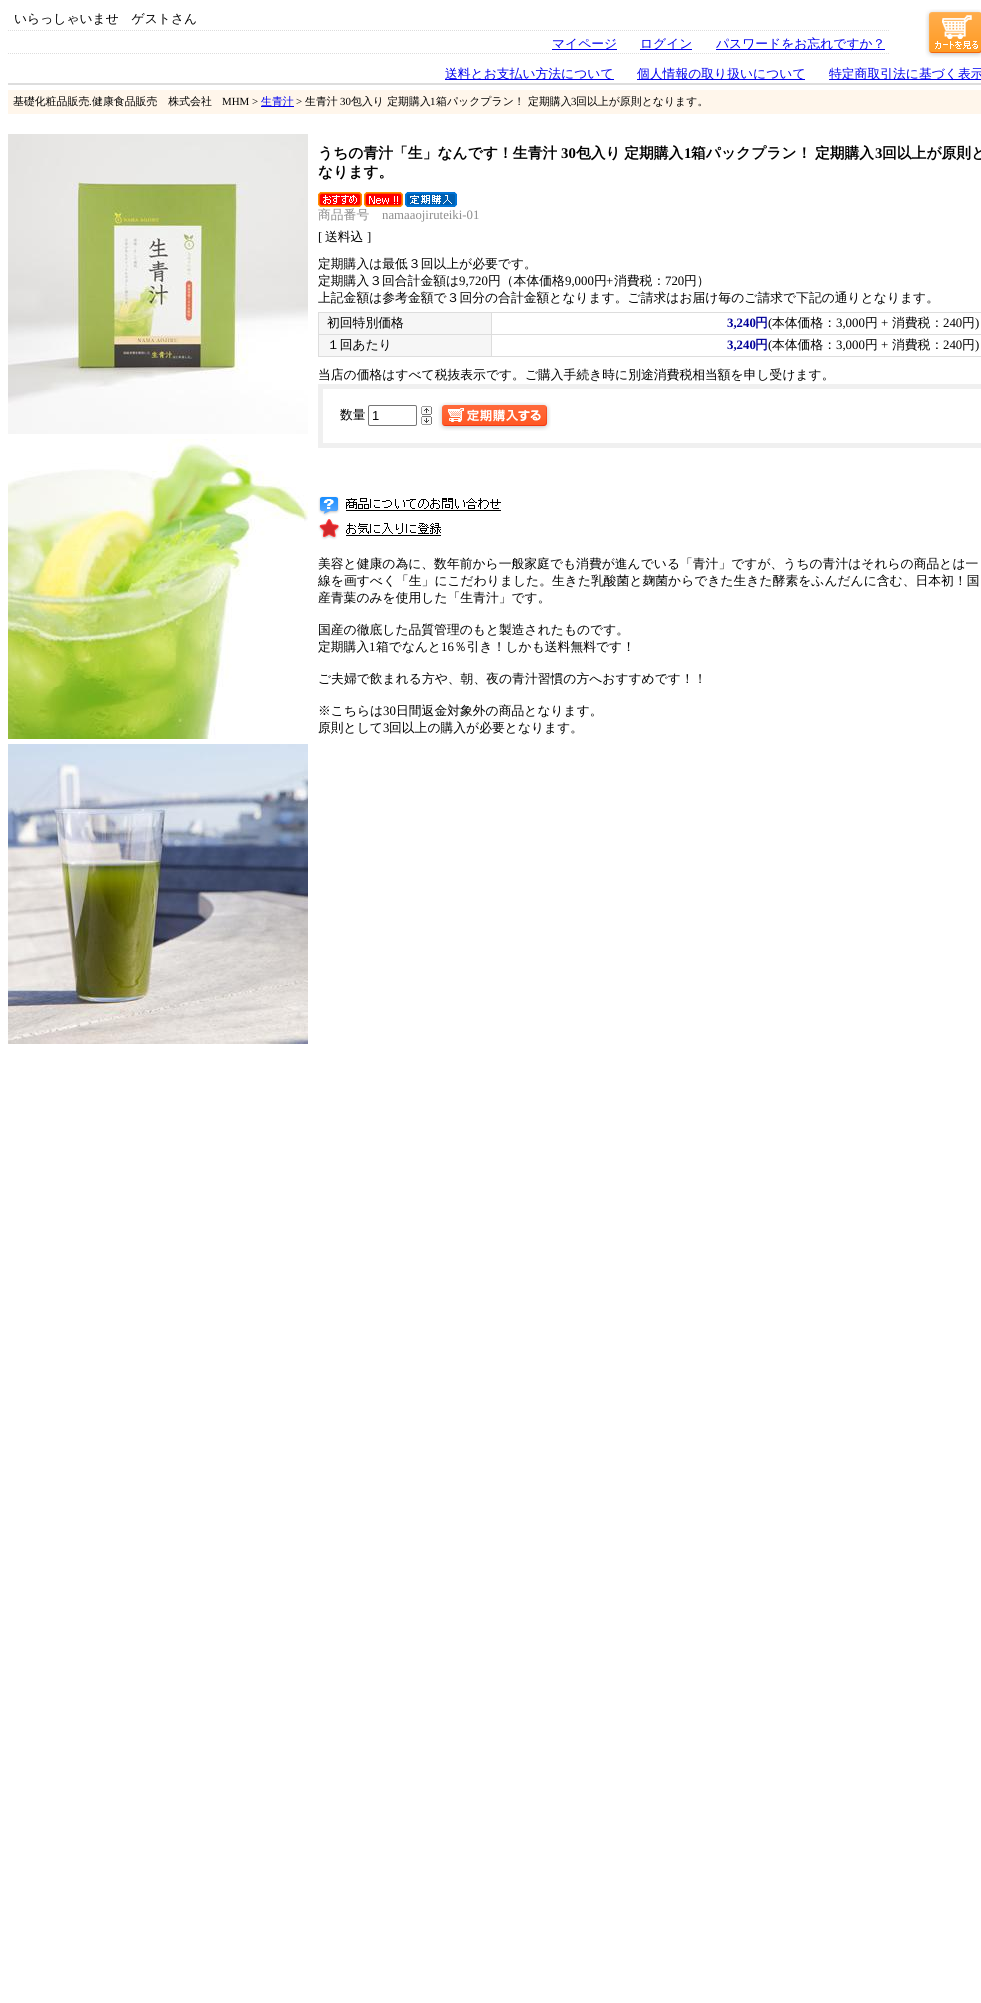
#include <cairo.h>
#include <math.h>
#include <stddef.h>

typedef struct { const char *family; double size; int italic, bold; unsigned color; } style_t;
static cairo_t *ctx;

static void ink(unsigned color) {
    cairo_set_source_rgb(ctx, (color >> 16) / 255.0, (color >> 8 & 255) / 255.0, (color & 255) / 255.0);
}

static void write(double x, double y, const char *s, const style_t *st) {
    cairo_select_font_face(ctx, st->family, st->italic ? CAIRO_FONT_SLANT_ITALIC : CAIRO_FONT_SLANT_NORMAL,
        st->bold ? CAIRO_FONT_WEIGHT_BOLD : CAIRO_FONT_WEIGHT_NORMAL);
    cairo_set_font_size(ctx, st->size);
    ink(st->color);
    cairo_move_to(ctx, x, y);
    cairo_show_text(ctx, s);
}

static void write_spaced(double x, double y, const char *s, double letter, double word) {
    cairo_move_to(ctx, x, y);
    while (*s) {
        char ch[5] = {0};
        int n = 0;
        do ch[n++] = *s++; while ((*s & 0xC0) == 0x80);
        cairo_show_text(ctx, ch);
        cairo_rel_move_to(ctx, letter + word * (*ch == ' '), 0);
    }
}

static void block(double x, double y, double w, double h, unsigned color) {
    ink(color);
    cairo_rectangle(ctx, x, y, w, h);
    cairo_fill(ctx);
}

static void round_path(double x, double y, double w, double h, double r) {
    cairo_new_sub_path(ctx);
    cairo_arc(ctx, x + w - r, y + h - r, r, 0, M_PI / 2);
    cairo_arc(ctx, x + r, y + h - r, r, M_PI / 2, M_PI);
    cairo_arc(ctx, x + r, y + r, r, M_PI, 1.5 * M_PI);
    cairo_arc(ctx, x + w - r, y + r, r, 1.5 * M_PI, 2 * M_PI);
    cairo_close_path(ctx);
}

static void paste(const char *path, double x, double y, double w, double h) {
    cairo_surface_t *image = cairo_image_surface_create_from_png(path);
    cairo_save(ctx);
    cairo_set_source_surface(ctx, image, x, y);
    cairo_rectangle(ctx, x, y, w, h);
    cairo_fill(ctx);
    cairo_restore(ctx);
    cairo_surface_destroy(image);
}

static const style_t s1 = {"WenQuanYi Zen Hei Medium", 12.8, 0, 0, 0x000000};
static const style_t s2 = {"WenQuanYi Zen Hei Medium", 12.8, 0, 0, 0x0000ee};
static const style_t s3 = {"WenQuanYi Zen Hei Medium", 10.9, 0, 0, 0x000000};
static const style_t s4 = {"Liberation Serif", 10.9, 0, 0, 0x000000};
static const style_t s5 = {"WenQuanYi Zen Hei Medium", 10.9, 0, 0, 0x0000ee};
static const style_t s6 = {"WenQuanYi Zen Hei", 14.8, 0, 1, 0x000000};
static const style_t s7 = {"Liberation Serif", 14.8, 0, 1, 0x000000};
static const style_t s8 = {"WenQuanYi Zen Hei Medium", 12.8, 0, 0, 0x8c8c8c};
static const style_t s9 = {"Liberation Serif", 12.8, 0, 0, 0x8c8c8c};
static const style_t s10 = {"Liberation Serif", 12.8, 0, 0, 0x000000};
static const style_t s11 = {"Liberation Serif", 12.8, 0, 1, 0x000099};
static const style_t s12 = {"WenQuanYi Zen Hei", 12.8, 0, 1, 0x000099};
static const style_t s13 = {"Liberation Sans", 13, 0, 0, 0x000000};

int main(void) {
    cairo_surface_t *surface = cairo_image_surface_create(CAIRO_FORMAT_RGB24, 981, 2003);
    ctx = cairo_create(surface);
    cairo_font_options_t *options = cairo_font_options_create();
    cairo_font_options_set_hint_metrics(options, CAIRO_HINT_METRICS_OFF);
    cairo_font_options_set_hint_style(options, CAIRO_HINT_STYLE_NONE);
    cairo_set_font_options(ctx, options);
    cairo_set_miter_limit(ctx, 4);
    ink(0xffffff);
    cairo_paint(ctx);
    cairo_new_path(ctx);
    cairo_move_to(ctx, 8, 30.5);
    cairo_line_to(ctx, 890, 30.5);
    ink(0xdddddd);
    cairo_set_line_width(ctx, 1);
    cairo_set_dash(ctx, (double[]){1, 1}, 2, 0);
    cairo_stroke(ctx);
    write(14, 23, "いらっしゃいませ　ゲストさん", &s1);
    paste("pic1.png", 925, 9, 56, 49);
    cairo_new_path(ctx);
    cairo_move_to(ctx, 8, 53.5);
    cairo_line_to(ctx, 890, 53.5);
    ink(0xdddddd);
    cairo_stroke(ctx);
    block(552, 49, 65, 1, 0x0000ee);
    write(552, 48, "マイページ", &s2);
    block(640, 49, 52, 1, 0x0000ee);
    write(640, 48, "ログイン", &s2);
    block(716, 49, 169, 1, 0x0000ee);
    write(716, 48, "パスワードをお忘れですか？", &s2);
    block(8, 83, 973, 2, 0xdddddd);
    block(445, 79, 169, 1, 0x0000ee);
    write(445, 78, "送料とお支払い方法について", &s2);
    block(637, 79, 168, 1, 0x0000ee);
    write(637, 78, "個人情報の取り扱いについて", &s2);
    block(829, 79, 152, 1, 0x0000ee);
    write(829, 78, "特定商取引法に基づく表示", &s2);
    block(8, 90, 973, 24, 0xfff6eb);
    write(13, 105, "基礎化粧品販売", &s3);
    write(89, 105, ".", &s4);
    write(92, 105, "健康食品販売　株式会社", &s3);
    write(222, 105, "MHM >", &s4);
    block(261, 106, 33, 1, 0x0000ee);
    write(261, 105, "生青汁", &s5);
    write(296, 105, ">", &s4);
    write(305, 105, "生青汁", &s3);
    write(340, 105, "30", &s4);
    write(351, 105, "包入り 定期購入", &s3);
    write(430, 105, "1", &s4);
    write(436, 105, "箱パックプラン！ 定期購入", &s3);
    write(571, 105, "3", &s4);
    write(576, 105, "回以上が原則となります。", &s3);
    paste("pic2.png", 8, 134, 300, 300);
    paste("pic3.png", 8, 439, 300, 300);
    paste("pic4.png", 8, 744, 300, 300);
    write(318, 158, "うちの青汁「生」なんです！生青汁", &s6);
    write(561, 158, "30", &s7);
    cairo_select_font_face(ctx, "WenQuanYi Zen Hei", CAIRO_FONT_SLANT_NORMAL, CAIRO_FONT_WEIGHT_BOLD);
    write_spaced(576, 158, "包入り 定期購入", 0, -1);
    write(684, 158, "1", &s7);
    cairo_select_font_face(ctx, "WenQuanYi Zen Hei", CAIRO_FONT_SLANT_NORMAL, CAIRO_FONT_WEIGHT_BOLD);
    write_spaced(691, 158, "箱パックプラン！ 定期購入", 0, -1);
    write(875, 158, "3", &s7);
    write(882, 158, "回以上が原則と", &s6);
    write(318, 177, "なります。", &s6);
    paste("pic5.png", 318, 192, 44, 15);
    paste("pic6.png", 364, 192, 39, 15);
    paste("pic7.png", 405, 192, 52, 15);
    write(318, 219, "商品番号", &s8);
    write(382, 219, "namaaojiruteiki-01", &s9);
    write(318, 241, "[", &s10);
    write(325, 241, "送料込", &s1);
    write(367, 241, "]", &s10);
    write(318, 268, "定期購入は最低３回以上が必要です。", &s1);
    write(318, 285, "定期購入３回合計金額は", &s1);
    write(459, 285, "9,720", &s10);
    write(488, 285, "円（本体価格", &s1);
    write(565, 285, "9,000", &s10);
    write(594, 285, "円", &s1);
    write(606, 285, "+", &s10);
    write(614, 285, "消費税：", &s1);
    write(665, 285, "720", &s10);
    write(684, 285, "円）", &s1);
    write(318, 302, "上記金額は参考金額で３回分の合計金額となります。ご請求はお届け毎のご請求で下記の通りとなります。", &s1);
    block(318, 312, 663, 1, 0xdddddd);
    block(318, 312, 1, 45, 0xdddddd);
    block(319, 313, 172, 21, 0xf6f6f6);
    block(491, 313, 1, 44, 0xdddddd);
    block(319, 334, 662, 1, 0xdddddd);
    write(327, 327, "初回特別価格", &s1);
    write(727, 327, "3,240", &s11);
    write(755, 327, "円", &s12);
    write(768, 327, "(", &s10);
    write(772, 327, "本体価格：", &s1);
    write(836, 327, "3,000", &s10);
    write(865, 327, "円", &s1);
    write(881, 327, "+", &s10);
    write(892, 327, "消費税：", &s1);
    write(943, 327, "240", &s10);
    write(962, 327, "円", &s1);
    write(975, 327, ")", &s10);
    block(319, 335, 172, 21, 0xf6f6f6);
    block(319, 356, 662, 1, 0xdddddd);
    write(327, 349, "１回あたり", &s1);
    write(727, 349, "3,240", &s11);
    write(755, 349, "円", &s12);
    write(768, 349, "(", &s10);
    write(772, 349, "本体価格：", &s1);
    write(836, 349, "3,000", &s10);
    write(865, 349, "円", &s1);
    write(881, 349, "+", &s10);
    write(892, 349, "消費税：", &s1);
    write(943, 349, "240", &s10);
    write(962, 349, "円", &s1);
    write(975, 349, ")", &s10);
    write(318, 379, "当店の価格はすべて税抜表示です。ご購入手続き時に別途消費税相当額を申し受けます。", &s1);
    cairo_rectangle(ctx, 320.5, 386.5, 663, 59);
    ink(0xf0f0f0);
    cairo_set_line_width(ctx, 5);
    cairo_set_dash(ctx, NULL, 0, 0);
    cairo_stroke(ctx);
    write(340, 419, "数量", &s1);
    round_path(368.5, 405.5, 48, 20, 1.5);
    ink(0x767676);
    cairo_set_line_width(ctx, 1);
    cairo_stroke(ctx);
    write(372, 420, "1", &s13);
    paste("pic8.png", 421, 406, 11, 9);
    paste("pic9.png", 421, 416, 11, 9);
    paste("pic10.png", 438, 402, 113, 29);
    paste("pic11.png", 318, 496, 183, 20);
    paste("pic12.png", 318, 519, 123, 21);
    write(318, 568, "美容と健康の為に、数年前から一般家庭でも消費が進んでいる「青汁」ですが、うちの青汁はそれらの商品とは一", &s1);
    write(318, 585, "線を画すべく「生」にこだわりました。生きた乳酸菌と麹菌からできた生きた酵素をふんだんに含む、日本初！国", &s1);
    write(318, 602, "産青葉のみを使用した「生青汁」です。", &s1);
    write(318, 634, "国産の徹底した品質管理のもと製造されたものです。", &s1);
    write(318, 651, "定期購入", &s1);
    write(369, 651, "1", &s10);
    write(376, 651, "箱でなんと", &s1);
    write(441, 651, "16", &s10);
    write(454, 651, "％引き！しかも送料無料です！", &s1);
    write(318, 683, "ご夫婦で飲まれる方や、朝、夜の青汁習慣の方へおすすめです！！", &s1);
    write(318, 715, "※こちらは", &s1);
    write(383, 715, "30", &s10);
    write(396, 715, "日間返金対象外の商品となります。", &s1);
    write(318, 732, "原則として", &s1);
    write(383, 732, "3", &s10);
    write(389, 732, "回以上の購入が必要となります。", &s1);
    cairo_surface_write_to_png(surface, "screenshot.png");
    cairo_font_options_destroy(options);
    cairo_destroy(ctx);
    cairo_surface_destroy(surface);
    return 0;
}
